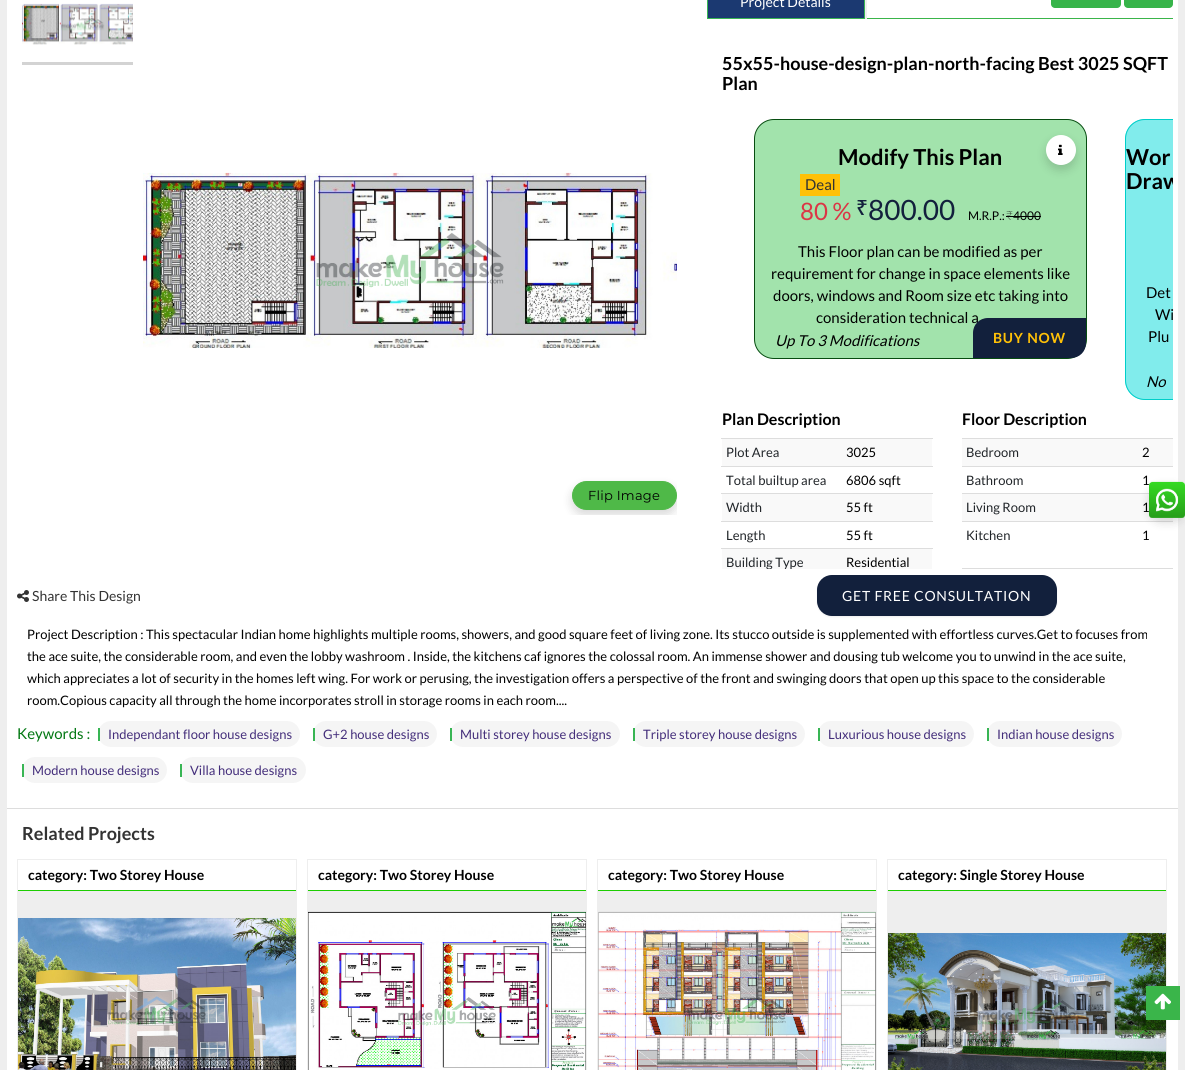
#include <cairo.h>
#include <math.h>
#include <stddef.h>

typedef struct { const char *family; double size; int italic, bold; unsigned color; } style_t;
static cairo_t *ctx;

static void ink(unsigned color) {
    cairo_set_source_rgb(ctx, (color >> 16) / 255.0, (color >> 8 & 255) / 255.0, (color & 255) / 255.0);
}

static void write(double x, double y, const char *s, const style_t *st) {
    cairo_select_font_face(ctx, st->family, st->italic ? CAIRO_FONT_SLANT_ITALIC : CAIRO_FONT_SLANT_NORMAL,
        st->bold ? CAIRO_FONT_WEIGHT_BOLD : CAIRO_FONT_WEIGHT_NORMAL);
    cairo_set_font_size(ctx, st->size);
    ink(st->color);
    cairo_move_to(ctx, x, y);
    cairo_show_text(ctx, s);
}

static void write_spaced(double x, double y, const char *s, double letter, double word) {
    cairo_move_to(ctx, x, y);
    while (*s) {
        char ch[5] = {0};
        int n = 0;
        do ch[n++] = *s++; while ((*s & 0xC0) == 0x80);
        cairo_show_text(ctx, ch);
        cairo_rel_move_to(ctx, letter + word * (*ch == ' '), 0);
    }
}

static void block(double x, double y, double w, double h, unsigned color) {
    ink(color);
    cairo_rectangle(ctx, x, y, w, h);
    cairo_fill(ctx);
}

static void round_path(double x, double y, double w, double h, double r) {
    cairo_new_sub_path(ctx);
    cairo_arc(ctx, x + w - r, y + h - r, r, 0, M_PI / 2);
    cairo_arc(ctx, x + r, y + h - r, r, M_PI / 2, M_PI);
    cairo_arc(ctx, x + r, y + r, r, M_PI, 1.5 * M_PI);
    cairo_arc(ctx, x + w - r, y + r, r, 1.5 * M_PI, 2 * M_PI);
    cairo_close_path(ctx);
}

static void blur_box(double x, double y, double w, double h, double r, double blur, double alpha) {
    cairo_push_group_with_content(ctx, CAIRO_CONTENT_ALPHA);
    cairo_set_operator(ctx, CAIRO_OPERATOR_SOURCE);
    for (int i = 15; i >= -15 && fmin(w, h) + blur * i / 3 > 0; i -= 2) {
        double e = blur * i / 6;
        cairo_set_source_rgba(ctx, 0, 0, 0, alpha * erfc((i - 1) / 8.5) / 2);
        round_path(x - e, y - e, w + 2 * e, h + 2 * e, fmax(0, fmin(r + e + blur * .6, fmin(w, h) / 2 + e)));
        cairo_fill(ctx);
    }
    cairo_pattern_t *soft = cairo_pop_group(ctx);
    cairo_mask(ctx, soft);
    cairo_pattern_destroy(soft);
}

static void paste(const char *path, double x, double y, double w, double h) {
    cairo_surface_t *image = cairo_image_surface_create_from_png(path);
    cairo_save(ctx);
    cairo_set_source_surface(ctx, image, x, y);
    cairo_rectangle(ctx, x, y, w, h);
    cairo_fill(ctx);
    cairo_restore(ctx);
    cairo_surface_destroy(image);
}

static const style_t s1 = {"Lato", 14, 0, 0, 0xffffff};
static const style_t s2 = {"Lato", 18, 0, 1, 0x000000};
static const style_t s3 = {"Lato", 22, 0, 1, 0x000000};
static const style_t s4 = {"Lato", 15, 0, 0, 0x333333};
static const style_t s5 = {"Lato", 24, 0, 0, 0xdc3545};
static const style_t s6 = {"Noto Sans Medium", 21, 0, 0, 0x12203c};
static const style_t s7 = {"Lato", 28, 0, 0, 0x12203c};
static const style_t s8 = {"Lato", 12, 0, 0, 0x000000};
static const style_t s9 = {"Noto Sans Thin", 12, 0, 0, 0x000000};
static const style_t s10 = {"Lato", 15, 0, 0, 0x000000};
static const style_t s11 = {"Lato", 15, 1, 0, 0x000000};
static const style_t s12 = {"Lato", 16, 0, 1, 0x000000};
static const style_t s13 = {"Lato", 13, 0, 0, 0x212529};
static const style_t s14 = {"Lato", 13, 0, 0, 0x000000};
static const style_t s15 = {"Lato", 14, 0, 0, 0x333333};
static const style_t s16 = {"Lato", 15, 0, 0, 0x037813};
static const style_t s17 = {"Lato", 13, 0, 0, 0x442e7b};
static const style_t s18 = {"Lato", 18, 0, 1, 0x333333};
static const style_t s19 = {"Lato", 14, 0, 1, 0x000000};

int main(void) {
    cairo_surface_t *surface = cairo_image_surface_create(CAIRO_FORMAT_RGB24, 1185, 1070);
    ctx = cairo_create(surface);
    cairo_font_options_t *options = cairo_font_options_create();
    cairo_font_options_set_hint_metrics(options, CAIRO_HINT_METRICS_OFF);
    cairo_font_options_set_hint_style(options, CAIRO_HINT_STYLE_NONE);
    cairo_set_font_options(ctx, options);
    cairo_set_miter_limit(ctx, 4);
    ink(0xeeeeee);
    cairo_paint(ctx);
    block(7, 0, 1171, 1070, 0xffffff);
    block(22, 62, 111, 3, 0xd3d3d3);
    paste("pic1.png", 22, 3, 111, 42);
    paste("pic2.png", 143, 172, 534, 176);
    cairo_save(ctx);
    cairo_rectangle(ctx, 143, 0, 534, 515);
    cairo_clip(ctx);
    ink(0x000000);
    blur_box(572, 486, 105, 29, 14.5, 5, 0.15);
    cairo_restore(ctx);
    ink(0x4fb948);
    round_path(572.5, 481.5, 104, 28, 14);
    cairo_fill_preserve(ctx);
    cairo_set_line_width(ctx, 1);
    cairo_stroke(ctx);
    cairo_select_font_face(ctx, "Montserrat", CAIRO_FONT_SLANT_NORMAL, CAIRO_FONT_WEIGHT_NORMAL);
    cairo_set_font_size(ctx, 13);
    ink(0x000000);
    write_spaced(588, 500, "Flip Image", 0.25, 0);
    block(865, 0, 2, 19, 0xeeeeee);
    ink(0x1b3971);
    cairo_rectangle(ctx, 707.5, -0.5, 157, 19);
    cairo_fill_preserve(ctx);
    ink(0x38b554);
    cairo_stroke(ctx);
    write(740, 7, "Project Details", &s1);
    ink(0x37b44a);
    round_path(1051, -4, 70, 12, 4);
    cairo_fill(ctx);
    round_path(1124, -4, 49, 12, 4);
    cairo_fill(ctx);
    block(867, 18, 306, 1, 0x3ab54a);
    write(722, 70, "55x55-house-design-plan-north-facing Best 3025 SQFT", &s2);
    write(722, 90, "Plan", &s2);
    ink(0xa2e3ac);
    round_path(754.5, 119.5, 332, 239, 19.5);
    cairo_fill_preserve(ctx);
    ink(0x074d11);
    cairo_stroke(ctx);
    write(838, 165, "Modify This Plan", &s3);
    ink(0x000000);
    blur_box(1046, 140, 30, 30, 15, 5, 0.15);
    ink(0xffffff);
    cairo_arc(ctx, 1061, 150, 15, 0, 2 * M_PI);
    cairo_fill(ctx);
    paste("pic3.png", 1058, 144, 5, 11);
    block(800, 174, 40, 22, 0xffc107);
    write(805, 190, "Deal", &s4);
    write(800, 220, "80 %", &s5);
    write(856, 215, "₹", &s6);
    write(868, 220, "800.00", &s7);
    write(968, 220, "M.R.P.:", &s8);
    write(1006, 220, "₹", &s9);
    write(1013, 220, "4000", &s8);
    block(1006, 216, 35, 1, 0x000000);
    write(798, 257, "This Floor plan can be modified as per", &s10);
    write(771, 279, "requirement for change in space elements like", &s10);
    write(773, 301, "doors, windows and Room size etc taking into", &s10);
    write(816, 323, "consideration technical a", &s10);
    write(775, 346, "Up To 3 Modifications", &s11);
    ink(0x12203c);
    cairo_new_path(ctx);
    cairo_move_to(ctx, 988, 318);
    cairo_line_to(ctx, 1086, 318);
    cairo_line_to(ctx, 1086, 343);
    cairo_curve_to(ctx, 1086, 351.5, 1079.5, 358, 1071, 358);
    cairo_line_to(ctx, 973, 358);
    cairo_line_to(ctx, 973, 333);
    cairo_curve_to(ctx, 973, 324.5, 979.5, 318, 988, 318);
    cairo_close_path(ctx);
    cairo_fill(ctx);
    cairo_select_font_face(ctx, "Lato", CAIRO_FONT_SLANT_NORMAL, CAIRO_FONT_WEIGHT_BOLD);
    cairo_set_font_size(ctx, 14);
    ink(0xffc107);
    write_spaced(993, 343, "BUY NOW", 0.75, 0);
    ink(0x81ecec);
    cairo_new_path(ctx);
    cairo_move_to(ctx, 1145, 119);
    cairo_line_to(ctx, 1173, 119);
    cairo_line_to(ctx, 1173, 400);
    cairo_line_to(ctx, 1145, 400);
    cairo_curve_to(ctx, 1134, 400, 1125, 391, 1125, 380);
    cairo_line_to(ctx, 1125, 139);
    cairo_curve_to(ctx, 1125, 128, 1134, 119, 1145, 119);
    cairo_close_path(ctx);
    cairo_fill(ctx);
    cairo_save(ctx);
    cairo_rectangle(ctx, 707, 19, 466, 550);
    cairo_clip(ctx);
    round_path(1125.5, 119.5, 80, 280, 19.5);
    ink(0x00cec9);
    cairo_stroke(ctx);
    cairo_restore(ctx);
    write(1126, 165, "Wor", &s3);
    cairo_save(ctx);
    cairo_rectangle(ctx, 707, 19, 466, 550);
    cairo_clip(ctx);
    write(1126, 189, "Draw", &s3);
    cairo_restore(ctx);
    write(1146, 298, "Det", &s10);
    cairo_save(ctx);
    cairo_rectangle(ctx, 707, 19, 466, 550);
    cairo_clip(ctx);
    write(1155, 320, "Wi", &s10);
    cairo_restore(ctx);
    write(1148, 342, "Plu", &s10);
    write(1146, 387, "No", &s11);
    write(722, 425, "Plan Description", &s12);
    block(722, 439, 210, 27, 0xf9f9f9);
    write(726, 457, "Plot Area", &s13);
    block(721, 438, 212, 1, 0xdddddd);
    write(846, 457, "3025", &s14);
    write(726, 485, "Total builtup area", &s13);
    block(721, 466, 212, 1, 0xdddddd);
    write(846, 485, "6806 sqft", &s14);
    block(722, 494, 210, 27, 0xf9f9f9);
    write(726, 512, "Width", &s13);
    block(721, 493, 212, 1, 0xdddddd);
    write(846, 512, "55 ft", &s14);
    write(726, 540, "Length", &s13);
    block(721, 521, 212, 1, 0xdddddd);
    write(846, 540, "55 ft", &s14);
    block(722, 549, 210, 20, 0xf9f9f9);
    cairo_save(ctx);
    cairo_rectangle(ctx, 707, 19, 466, 550);
    cairo_clip(ctx);
    write(726, 567, "Building Type", &s13);
    cairo_restore(ctx);
    block(721, 548, 212, 1, 0xdddddd);
    write(846, 567, "Residential", &s14);
    write(962, 425, "Floor Description", &s12);
    block(962, 439, 211, 27, 0xf9f9f9);
    write(966, 457, "Bedroom", &s13);
    block(962, 438, 211, 1, 0xdddddd);
    write(1142, 457, "2", &s14);
    write(966, 485, "Bathroom", &s13);
    block(962, 466, 211, 1, 0xdddddd);
    write(1142, 485, "1", &s14);
    block(962, 494, 211, 27, 0xf9f9f9);
    write(966, 512, "Living Room", &s13);
    block(962, 493, 187, 1, 0xdddddd);
    write(1142, 512, "1", &s14);
    write(966, 540, "Kitchen", &s13);
    block(962, 521, 211, 1, 0xdddddd);
    write(1142, 540, "1", &s14);
    block(962, 568, 211, 1, 0xdddddd);
    paste("pic4.png", 17, 590, 12, 12);
    write(32, 601, "Share This Design", &s15);
    ink(0x000000);
    blur_box(817, 576, 240, 41, 15, 1, 0.07);
    ink(0x12203c);
    round_path(817, 575, 240, 41, 15);
    cairo_fill(ctx);
    ink(0xffffff);
    write_spaced(842, 601, "GET FREE CONSULTATION", 0.75, 0);
    write(27, 639, "Project Description : This spectacular Indian home highlights multiple rooms, showers, and good square feet of living zone. Its stucco outside is supplemented with effortless curves.Get to focuses from", &s14);
    write(27, 661, "the ace suite, the considerable room, and even the lobby washroom . Inside, the kitchens caf ignores the colossal room. An immense shower and dousing tub welcome you to unwind in the ace suite,", &s14);
    write(27, 683, "which appreciates a lot of security in the homes left wing. For work or perusing, the investigation offers a perspective of the front and swinging doors that open up this space to the considerable", &s14);
    write(27, 705, "room.Copious capacity all through the home incorporates stroll in storage rooms in each room....", &s14);
    write(17, 739, "Keywords :", &s16);
    ink(0xf5f5f5);
    round_path(98, 721, 202, 26, 13);
    cairo_fill(ctx);
    block(98, 728, 2, 13, 0x38b554);
    write(108, 739, "Independant floor house designs", &s17);
    ink(0xf5f5f5);
    round_path(313, 721, 124, 26, 13);
    cairo_fill(ctx);
    block(313, 728, 2, 13, 0x38b554);
    write(323, 739, "G+2 house designs", &s17);
    ink(0xf5f5f5);
    round_path(450, 721, 170, 26, 13);
    cairo_fill(ctx);
    block(450, 728, 2, 13, 0x38b554);
    write(460, 739, "Multi storey house designs", &s17);
    ink(0xf5f5f5);
    round_path(633, 721, 172, 26, 13);
    cairo_fill(ctx);
    block(633, 728, 2, 13, 0x38b554);
    write(643, 739, "Triple storey house designs", &s17);
    ink(0xf5f5f5);
    round_path(818, 721, 156, 26, 13);
    cairo_fill(ctx);
    block(818, 728, 2, 13, 0x38b554);
    write(828, 739, "Luxurious house designs", &s17);
    ink(0xf5f5f5);
    round_path(987, 721, 135, 26, 13);
    cairo_fill(ctx);
    block(987, 728, 2, 13, 0x38b554);
    write(997, 739, "Indian house designs", &s17);
    ink(0xf5f5f5);
    round_path(22, 757, 145, 26, 13);
    cairo_fill(ctx);
    block(22, 764, 2, 13, 0x38b554);
    write(32, 775, "Modern house designs", &s17);
    ink(0xf5f5f5);
    round_path(180, 757, 126, 26, 13);
    cairo_fill(ctx);
    block(180, 764, 2, 13, 0x38b554);
    write(190, 775, "Villa house designs", &s17);
    block(7, 808, 1171, 1, 0xdddddd);
    write(22, 840, "Related Projects", &s18);
    cairo_rectangle(ctx, 17.5, 859.5, 279, 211);
    ink(0xeeeeee);
    cairo_stroke(ctx);
    block(18, 890, 278, 1, 0x1ecd02);
    write(28, 880, "category: Two Storey House", &s19);
    block(18, 891, 278, 27, 0xeeeeee);
    paste("pic5.png", 18, 918, 278, 152);
    cairo_rectangle(ctx, 307.5, 859.5, 279, 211);
    cairo_stroke(ctx);
    block(308, 890, 278, 1, 0x1ecd02);
    write(318, 880, "category: Two Storey House", &s19);
    block(308, 891, 278, 21, 0xeeeeee);
    paste("pic6.png", 308, 911, 278, 159);
    cairo_rectangle(ctx, 597.5, 859.5, 279, 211);
    cairo_stroke(ctx);
    block(598, 890, 278, 1, 0x1ecd02);
    write(608, 880, "category: Two Storey House", &s19);
    block(598, 891, 278, 21, 0xeeeeee);
    paste("pic7.png", 598, 911, 278, 159);
    cairo_rectangle(ctx, 887.5, 859.5, 279, 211);
    cairo_stroke(ctx);
    block(888, 890, 278, 1, 0x1ecd02);
    write(898, 880, "category: Single Storey House", &s19);
    block(888, 891, 278, 42, 0xeeeeee);
    paste("pic8.png", 888, 933, 278, 137);
    ink(0x000000);
    blur_box(1149, 486, 36, 36, 12, 5, 0.15);
    paste("pic9.png", 1149, 481, 36, 37);
    block(1146, 986, 34, 34, 0x3ab54a);
    paste("pic10.png", 1154, 993, 17, 17);
    cairo_surface_write_to_png(surface, "screenshot.png");
    cairo_font_options_destroy(options);
    cairo_destroy(ctx);
    cairo_surface_destroy(surface);
    return 0;
}
